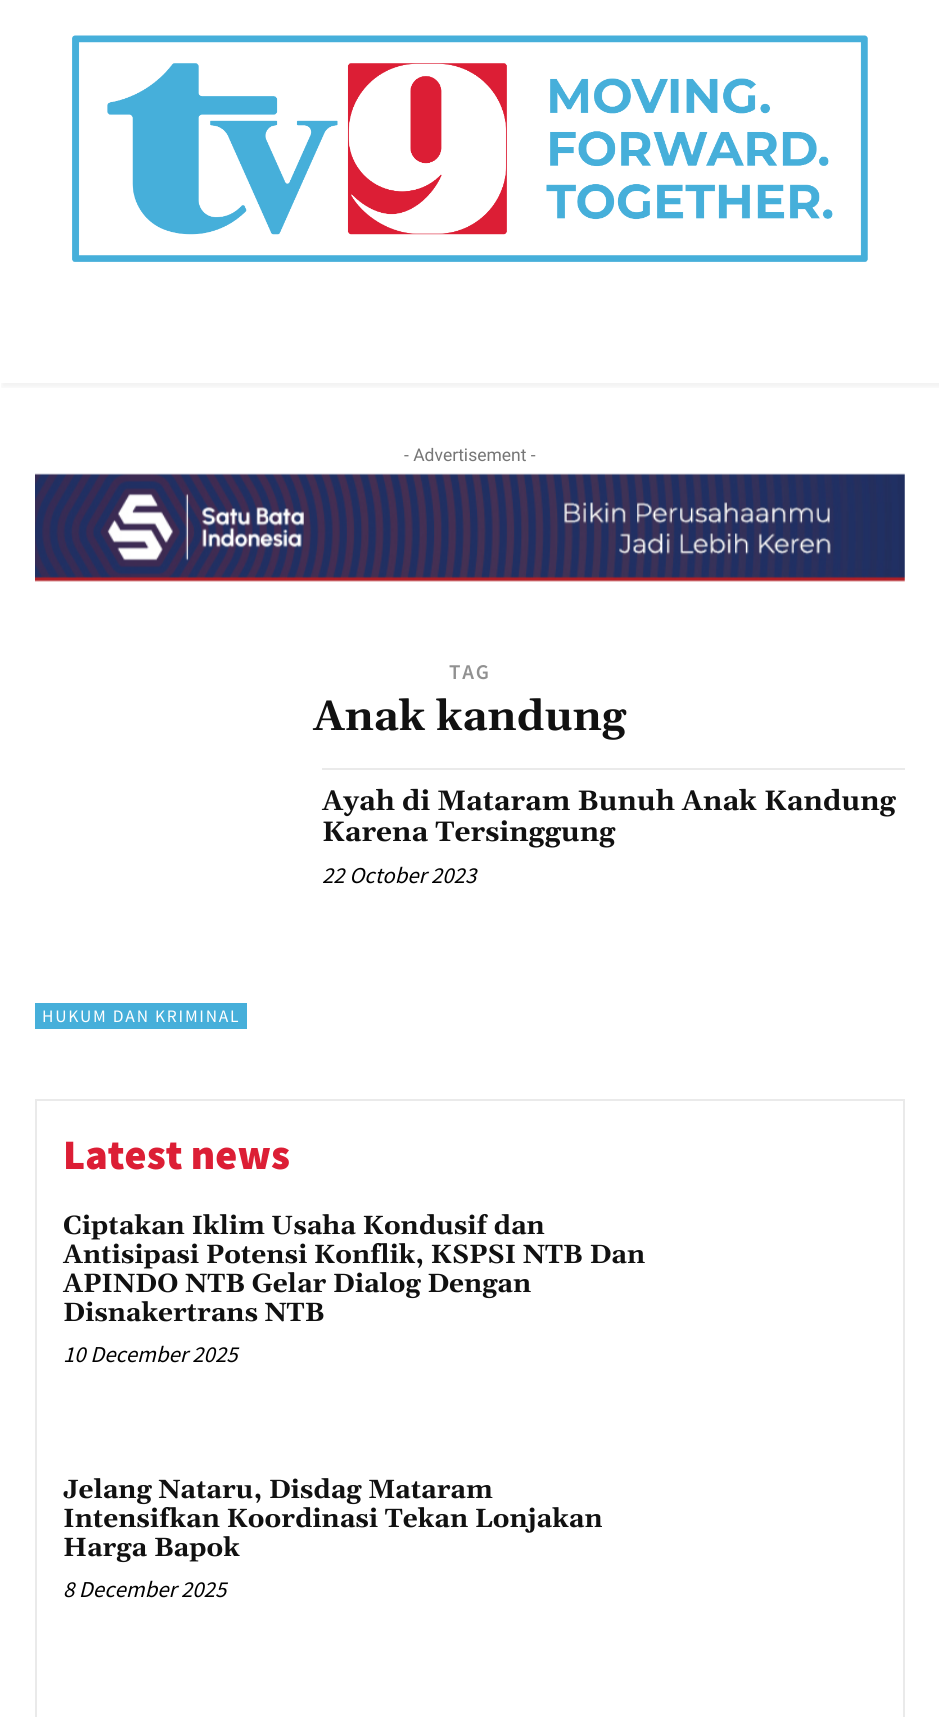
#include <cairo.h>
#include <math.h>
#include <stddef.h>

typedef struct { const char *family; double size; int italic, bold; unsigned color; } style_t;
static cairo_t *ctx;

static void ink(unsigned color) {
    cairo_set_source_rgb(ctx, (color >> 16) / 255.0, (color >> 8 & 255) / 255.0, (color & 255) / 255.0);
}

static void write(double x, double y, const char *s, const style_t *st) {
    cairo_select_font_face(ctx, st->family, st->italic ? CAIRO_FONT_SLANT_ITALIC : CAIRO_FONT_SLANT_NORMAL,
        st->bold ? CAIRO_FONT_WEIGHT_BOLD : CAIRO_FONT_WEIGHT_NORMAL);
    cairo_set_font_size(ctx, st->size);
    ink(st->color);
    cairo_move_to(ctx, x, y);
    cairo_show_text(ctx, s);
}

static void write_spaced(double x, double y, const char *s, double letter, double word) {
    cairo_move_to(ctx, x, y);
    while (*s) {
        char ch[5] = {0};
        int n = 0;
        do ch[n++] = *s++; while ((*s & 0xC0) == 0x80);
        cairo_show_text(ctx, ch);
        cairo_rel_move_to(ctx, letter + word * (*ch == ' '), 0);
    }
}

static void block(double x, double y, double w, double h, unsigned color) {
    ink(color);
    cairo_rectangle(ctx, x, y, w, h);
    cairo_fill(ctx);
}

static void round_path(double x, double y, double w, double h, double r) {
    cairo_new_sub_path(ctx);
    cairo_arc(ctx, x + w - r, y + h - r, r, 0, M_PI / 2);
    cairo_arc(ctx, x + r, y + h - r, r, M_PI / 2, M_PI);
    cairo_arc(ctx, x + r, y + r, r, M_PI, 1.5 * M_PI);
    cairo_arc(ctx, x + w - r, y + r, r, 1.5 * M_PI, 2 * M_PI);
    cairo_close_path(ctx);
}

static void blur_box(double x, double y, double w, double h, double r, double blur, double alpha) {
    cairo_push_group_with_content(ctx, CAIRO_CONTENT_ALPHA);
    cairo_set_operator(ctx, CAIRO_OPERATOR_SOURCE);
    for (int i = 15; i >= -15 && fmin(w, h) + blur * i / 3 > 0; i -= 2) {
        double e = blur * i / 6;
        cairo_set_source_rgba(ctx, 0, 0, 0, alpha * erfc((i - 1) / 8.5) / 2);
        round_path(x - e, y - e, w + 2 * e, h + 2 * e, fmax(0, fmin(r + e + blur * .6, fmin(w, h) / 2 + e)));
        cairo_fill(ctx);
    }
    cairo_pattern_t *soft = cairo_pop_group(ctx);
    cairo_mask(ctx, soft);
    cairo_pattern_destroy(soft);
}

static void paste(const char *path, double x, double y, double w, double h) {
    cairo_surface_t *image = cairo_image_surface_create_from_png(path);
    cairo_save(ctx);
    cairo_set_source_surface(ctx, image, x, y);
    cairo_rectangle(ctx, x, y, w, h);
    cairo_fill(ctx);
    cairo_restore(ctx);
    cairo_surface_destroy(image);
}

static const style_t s1 = {"Roboto", 17.5, 0, 0, 0x767676};
static const style_t s2 = {"Gelasio", 42, 0, 1, 0x111111};
static const style_t s3 = {"Gelasio", 28, 0, 1, 0x111111};
static const style_t s4 = {"Source Sans Pro", 22.75, 1, 0, 0x000000};
static const style_t s5 = {"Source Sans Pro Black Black", 42, 0, 0, 0xdc1e35};
static const style_t s6 = {"Gelasio", 26.25, 0, 1, 0x111111};

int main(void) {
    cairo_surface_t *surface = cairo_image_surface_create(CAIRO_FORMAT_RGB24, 939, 1717);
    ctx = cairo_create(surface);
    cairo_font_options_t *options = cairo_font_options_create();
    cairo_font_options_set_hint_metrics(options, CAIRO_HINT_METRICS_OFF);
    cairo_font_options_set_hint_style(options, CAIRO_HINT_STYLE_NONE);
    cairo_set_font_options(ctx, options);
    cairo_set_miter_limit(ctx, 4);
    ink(0xffffff);
    cairo_paint(ctx);
    paste("pic1.png", 72, 35, 796, 227);
    cairo_save(ctx);
    cairo_rectangle(ctx, 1, 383, 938, 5);
    cairo_clip(ctx);
    ink(0x000000);
    blur_box(2, 4, 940, 383, 0, 3.5, 0.06);
    cairo_restore(ctx);
    write(404, 461, "- Advertisement -", &s1);
    paste("pic2.png", 35, 473, 870, 109);
    cairo_select_font_face(ctx, "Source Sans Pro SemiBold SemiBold", CAIRO_FONT_SLANT_NORMAL, CAIRO_FONT_WEIGHT_NORMAL);
    cairo_set_font_size(ctx, 21);
    ink(0x919191);
    write_spaced(449, 679, "TAG", 1.75, 0);
    write(313, 730, "Anak kandung", &s2);
    block(322, 768, 583, 2, 0xeaeaea);
    write(322, 810, "Ayah di Mataram Bunuh Anak Kandung", &s3);
    write(322, 841, "Karena Tersinggung", &s3);
    write(322, 883, "22 October 2023", &s4);
    block(35, 1003, 212, 26, 0x46afda);
    cairo_select_font_face(ctx, "Source Sans Pro", CAIRO_FONT_SLANT_NORMAL, CAIRO_FONT_WEIGHT_NORMAL);
    cairo_set_font_size(ctx, 17.5);
    ink(0xffffff);
    write_spaced(42, 1022, "HUKUM DAN KRIMINAL", 1.75, 0);
    cairo_rectangle(ctx, 36, 1100, 868, 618);
    ink(0xeaeaea);
    cairo_stroke(ctx);
    write(63, 1169, "Latest news", &s5);
    write(63, 1234, "Ciptakan Iklim Usaha Kondusif dan", &s6);
    write(63, 1263, "Antisipasi Potensi Konflik, KSPSI NTB Dan", &s6);
    write(63, 1292, "APINDO NTB Gelar Dialog Dengan", &s6);
    write(63, 1321, "Disnakertrans NTB", &s6);
    write(63, 1362, "10 December 2025", &s4);
    write(63, 1498, "Jelang Nataru, Disdag Mataram", &s6);
    write(63, 1527, "Intensifkan Koordinasi Tekan Lonjakan", &s6);
    write(63, 1556, "Harga Bapok", &s6);
    write(63, 1597, "8 December 2025", &s4);
    cairo_surface_write_to_png(surface, "screenshot.png");
    cairo_font_options_destroy(options);
    cairo_destroy(ctx);
    cairo_surface_destroy(surface);
    return 0;
}
